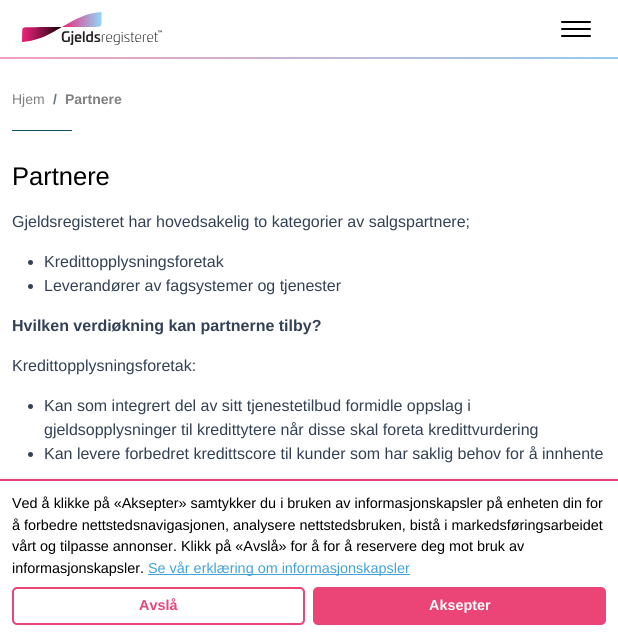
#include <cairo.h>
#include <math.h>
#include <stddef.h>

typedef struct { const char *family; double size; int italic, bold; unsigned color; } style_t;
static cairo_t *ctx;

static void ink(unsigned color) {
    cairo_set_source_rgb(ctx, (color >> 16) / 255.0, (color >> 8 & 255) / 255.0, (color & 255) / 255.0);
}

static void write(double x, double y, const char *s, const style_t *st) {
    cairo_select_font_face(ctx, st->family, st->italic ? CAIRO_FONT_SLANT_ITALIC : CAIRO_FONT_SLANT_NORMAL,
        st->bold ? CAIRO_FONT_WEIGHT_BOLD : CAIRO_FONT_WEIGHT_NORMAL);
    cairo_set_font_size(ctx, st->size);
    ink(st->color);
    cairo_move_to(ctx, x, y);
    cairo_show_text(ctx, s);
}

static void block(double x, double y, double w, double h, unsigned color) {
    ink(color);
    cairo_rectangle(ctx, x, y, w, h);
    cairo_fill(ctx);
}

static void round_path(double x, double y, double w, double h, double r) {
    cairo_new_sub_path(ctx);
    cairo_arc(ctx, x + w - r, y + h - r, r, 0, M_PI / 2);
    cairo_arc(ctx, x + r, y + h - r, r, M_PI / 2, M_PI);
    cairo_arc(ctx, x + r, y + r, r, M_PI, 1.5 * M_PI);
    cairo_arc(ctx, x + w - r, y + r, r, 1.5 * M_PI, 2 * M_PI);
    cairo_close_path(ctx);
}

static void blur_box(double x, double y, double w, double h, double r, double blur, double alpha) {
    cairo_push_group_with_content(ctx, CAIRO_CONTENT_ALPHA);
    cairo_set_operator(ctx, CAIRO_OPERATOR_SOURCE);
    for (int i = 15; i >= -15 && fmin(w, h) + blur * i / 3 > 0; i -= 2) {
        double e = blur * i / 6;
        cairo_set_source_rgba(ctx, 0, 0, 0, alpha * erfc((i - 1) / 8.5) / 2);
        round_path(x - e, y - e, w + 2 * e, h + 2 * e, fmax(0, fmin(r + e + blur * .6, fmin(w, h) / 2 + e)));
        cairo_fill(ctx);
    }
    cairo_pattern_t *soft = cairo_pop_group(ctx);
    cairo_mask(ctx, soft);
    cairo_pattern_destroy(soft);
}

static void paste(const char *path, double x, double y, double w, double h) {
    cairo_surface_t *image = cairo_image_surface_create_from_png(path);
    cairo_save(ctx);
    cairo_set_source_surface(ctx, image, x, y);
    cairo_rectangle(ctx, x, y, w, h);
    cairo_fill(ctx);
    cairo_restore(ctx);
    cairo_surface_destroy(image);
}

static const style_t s1 = {"Liberation Sans", 14, 0, 0, 0x808080};
static const style_t s2 = {"Liberation Sans", 14, 0, 1, 0x6c757d};
static const style_t s3 = {"Liberation Sans", 14, 0, 1, 0x808080};
static const style_t s4 = {"Liberation Sans", 25.5, 0, 0, 0x000000};
static const style_t s5 = {"Liberation Sans", 16, 0, 0, 0x334155};
static const style_t s6 = {"Liberation Sans", 16, 0, 1, 0x334155};
static const style_t s7 = {"Liberation Sans", 14.4, 0, 0, 0x000000};
static const style_t s8 = {"Liberation Sans", 14.4, 0, 0, 0x43a3dc};
static const style_t s9 = {"Liberation Sans", 14.4, 0, 1, 0xeb4577};
static const style_t s10 = {"Liberation Sans", 14.4, 0, 1, 0xffffff};

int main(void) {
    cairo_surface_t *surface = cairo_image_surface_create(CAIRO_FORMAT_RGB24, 618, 637);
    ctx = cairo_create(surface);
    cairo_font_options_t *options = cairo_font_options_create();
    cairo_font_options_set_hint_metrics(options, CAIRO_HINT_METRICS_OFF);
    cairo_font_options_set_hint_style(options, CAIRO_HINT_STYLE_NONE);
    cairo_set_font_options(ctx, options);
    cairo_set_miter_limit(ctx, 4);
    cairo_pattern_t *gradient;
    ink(0xffffff);
    cairo_paint(ctx);
    paste("pic1.png", 22, 12, 140, 33);
    ink(0x000000);
    round_path(561, 21, 30, 2, 1);
    cairo_fill(ctx);
    round_path(561, 28, 30, 2, 1);
    cairo_fill(ctx);
    round_path(561, 35, 30, 2, 1);
    cairo_fill(ctx);
    gradient = cairo_pattern_create_linear(0, 58, 618, 58);
    cairo_pattern_add_color_stop_rgba(gradient, 0, 0.953, 0.627, 0.741, 1);
    cairo_pattern_add_color_stop_rgba(gradient, 1, 0.588, 0.796, 0.922, 1);
    cairo_set_source(ctx, gradient);
    cairo_pattern_destroy(gradient);
    cairo_rectangle(ctx, 0, 57, 618, 2);
    cairo_fill(ctx);
    write(12, 104, "Hjem", &s1);
    write(53, 104, "/", &s2);
    write(65, 104, "Partnere", &s3);
    block(12, 130, 60, 1, 0x0c5460);
    write(12, 185, "Partnere", &s4);
    write(12, 227, "Gjeldsregisteret har hovedsakelig to kategorier av salgspartnere;", &s5);
    cairo_new_path(ctx);
    cairo_arc(ctx, 30.5, 262.5, 2.5, 0, 2 * M_PI);
    cairo_fill(ctx);
    write(44, 267, "Kredittopplysningsforetak", &s5);
    cairo_new_path(ctx);
    cairo_arc(ctx, 30.5, 286.5, 2.5, 0, 2 * M_PI);
    cairo_fill(ctx);
    write(44, 291, "Leverandører av fagsystemer og tjenester", &s5);
    write(12, 331, "Hvilken verdiøkning kan partnerne tilby?", &s6);
    write(12, 371, "Kredittopplysningsforetak:", &s5);
    cairo_new_path(ctx);
    cairo_arc(ctx, 30.5, 406.5, 2.5, 0, 2 * M_PI);
    cairo_fill(ctx);
    write(44, 411, "Kan som integrert del av sitt tjenestetilbud formidle oppslag i", &s5);
    write(44, 435, "gjeldsopplysninger til kredittytere når disse skal foreta kredittvurdering", &s5);
    cairo_new_path(ctx);
    cairo_arc(ctx, 30.5, 454.5, 2.5, 0, 2 * M_PI);
    cairo_fill(ctx);
    write(44, 459, "Kan levere forbedret kredittscore til kunder som har saklig behov for å innhente", &s5);
    ink(0x000000);
    blur_box(0, 480, 618, 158, 0, 2.5, 0.12);
    block(0, 481, 618, 156, 0xffffff);
    block(0, 479, 618, 2, 0xec3f7b);
    write(12, 508, "Ved å klikke på «Aksepter» samtykker du i bruken av informasjonskapsler på enheten din for", &s7);
    write(12, 530, "å forbedre nettstedsnavigasjonen, analysere nettstedsbruken, bistå i markedsføringsarbeidet", &s7);
    write(12, 551, "vårt og tilpasse annonser. Klikk på «Avslå» for å for å reservere deg mot bruk av", &s7);
    write(12, 573, "informasjonskapsler.", &s7);
    block(148, 574, 262, 1, 0x43a3dc);
    write(148, 573, "Se vår erklæring om informasjonskapsler", &s8);
    round_path(13, 588, 291, 36, 4);
    ink(0xeb4577);
    cairo_stroke(ctx);
    write(139, 610, "Avslå", &s9);
    round_path(313, 587, 293, 38, 5);
    cairo_fill(ctx);
    write(429, 610, "Aksepter", &s10);
    cairo_surface_write_to_png(surface, "screenshot.png");
    cairo_font_options_destroy(options);
    cairo_destroy(ctx);
    cairo_surface_destroy(surface);
    return 0;
}
